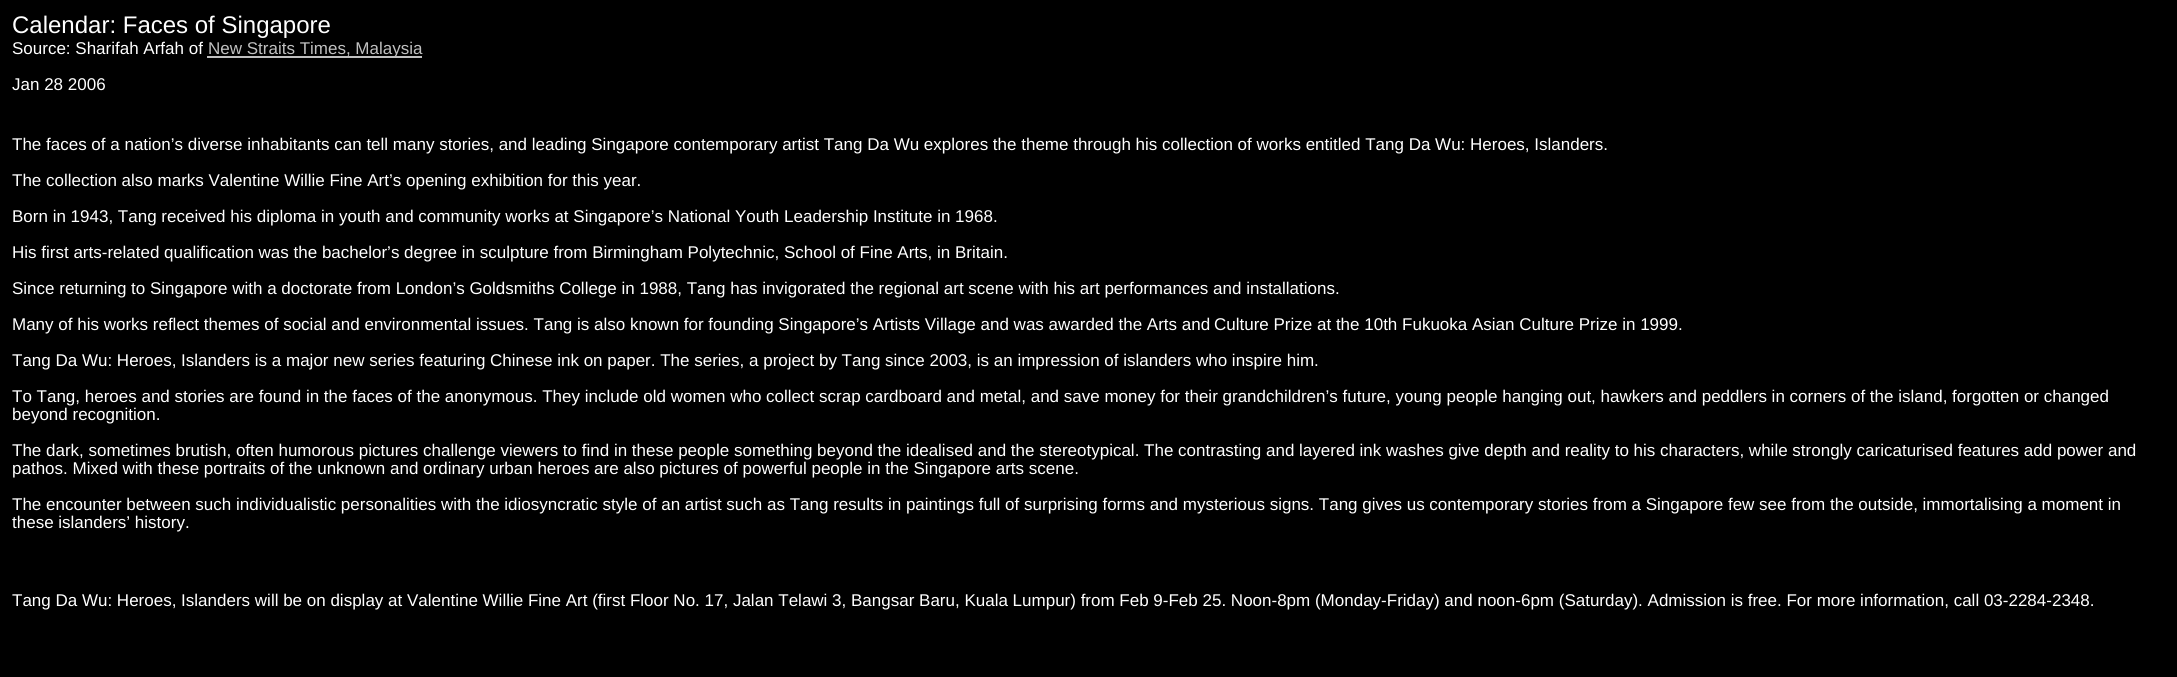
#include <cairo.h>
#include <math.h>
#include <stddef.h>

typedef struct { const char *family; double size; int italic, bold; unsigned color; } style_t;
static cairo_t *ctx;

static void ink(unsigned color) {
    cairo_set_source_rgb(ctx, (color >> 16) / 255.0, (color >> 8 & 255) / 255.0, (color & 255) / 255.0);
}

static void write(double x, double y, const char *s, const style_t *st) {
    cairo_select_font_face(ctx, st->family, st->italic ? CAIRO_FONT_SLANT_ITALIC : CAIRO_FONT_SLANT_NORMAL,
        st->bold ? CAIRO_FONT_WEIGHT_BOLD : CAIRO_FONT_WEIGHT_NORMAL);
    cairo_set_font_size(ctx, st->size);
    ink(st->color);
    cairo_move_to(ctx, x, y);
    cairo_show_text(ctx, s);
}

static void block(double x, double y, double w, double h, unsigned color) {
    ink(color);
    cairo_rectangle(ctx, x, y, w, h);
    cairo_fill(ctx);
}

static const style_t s1 = {"Liberation Sans", 24, 0, 0, 0xffffff};
static const style_t s2 = {"Liberation Sans", 17, 0, 0, 0xffffff};
static const style_t s3 = {"Liberation Sans", 17, 0, 0, 0xc0c0c0};

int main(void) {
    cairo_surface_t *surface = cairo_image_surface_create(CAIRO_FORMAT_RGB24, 2177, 677);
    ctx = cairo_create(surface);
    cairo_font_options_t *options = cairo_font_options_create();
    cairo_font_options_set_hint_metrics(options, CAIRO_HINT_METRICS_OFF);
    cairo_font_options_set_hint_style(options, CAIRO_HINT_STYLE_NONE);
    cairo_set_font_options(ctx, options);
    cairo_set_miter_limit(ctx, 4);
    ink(0x000000);
    cairo_paint(ctx);
    write(12, 33, "Calendar: Faces of Singapore", &s1);
    write(12, 54, "Source: Sharifah Arfah of", &s2);
    block(207, 56, 215, 2, 0xc0c0c0);
    write(208, 54, "New Straits Times, Malaysia", &s3);
    write(12, 90, "Jan 28 2006", &s2);
    write(12, 150, "The faces of a nation’s diverse inhabitants can tell many stories, and leading Singapore contemporary artist Tang Da Wu explores the theme through his collection of works entitled Tang Da Wu: Heroes, Islanders.", &s2);
    write(12, 186, "The collection also marks Valentine Willie Fine Art’s opening exhibition for this year.", &s2);
    write(12, 222, "Born in 1943, Tang received his diploma in youth and community works at Singapore’s National Youth Leadership Institute in 1968.", &s2);
    write(12, 258, "His first arts-related qualification was the bachelor’s degree in sculpture from Birmingham Polytechnic, School of Fine Arts, in Britain.", &s2);
    write(12, 294, "Since returning to Singapore with a doctorate from London’s Goldsmiths College in 1988, Tang has invigorated the regional art scene with his art performances and installations.", &s2);
    write(12, 330, "Many of his works reflect themes of social and environmental issues. Tang is also known for founding Singapore’s Artists Village and was awarded the Arts and", &s2);
    write(1214, 330, "Culture Prize at the 10th Fukuoka Asian Culture Prize in 1999.", &s2);
    write(12, 366, "Tang Da Wu: Heroes, Islanders is a major new series featuring Chinese ink on paper. The series, a project by Tang since 2003, is an impression of islanders who inspire him.", &s2);
    write(12, 402, "To Tang, heroes and stories are found in the faces of the anonymous. They include old women who collect scrap cardboard and metal, and save money for their grandchildren’s future, young people hanging out, hawkers and peddlers in corners of the island, forgotten or changed", &s2);
    write(12, 420, "beyond recognition.", &s2);
    write(12, 456, "The dark, sometimes brutish, often humorous pictures challenge viewers to find in these people something beyond the idealised and the stereotypical. The contrasting and layered ink washes give depth and reality to his characters, while strongly caricaturised features add power and", &s2);
    write(12, 474, "pathos. Mixed with these portraits of the unknown and ordinary urban heroes are also pictures of powerful people in the Singapore arts scene.", &s2);
    write(12, 510, "The encounter between such individualistic personalities with the idiosyncratic style of an artist such as Tang results in paintings full of surprising forms and mysterious signs. Tang gives us contemporary stories from a Singapore few see from the outside, immortalising a moment in", &s2);
    write(12, 528, "these islanders’ history.", &s2);
    write(12, 606, "Tang Da Wu: Heroes, Islanders will be on display at Valentine Willie Fine Art (first Floor No. 17, Jalan Telawi 3, Bangsar Baru, Kuala Lumpur) from Feb 9-Feb 25. Noon-8pm (Monday-Friday) and noon-6pm (Saturday). Admission is free. For more information, call 03-2284-2348.", &s2);
    cairo_surface_write_to_png(surface, "screenshot.png");
    cairo_font_options_destroy(options);
    cairo_destroy(ctx);
    cairo_surface_destroy(surface);
    return 0;
}
